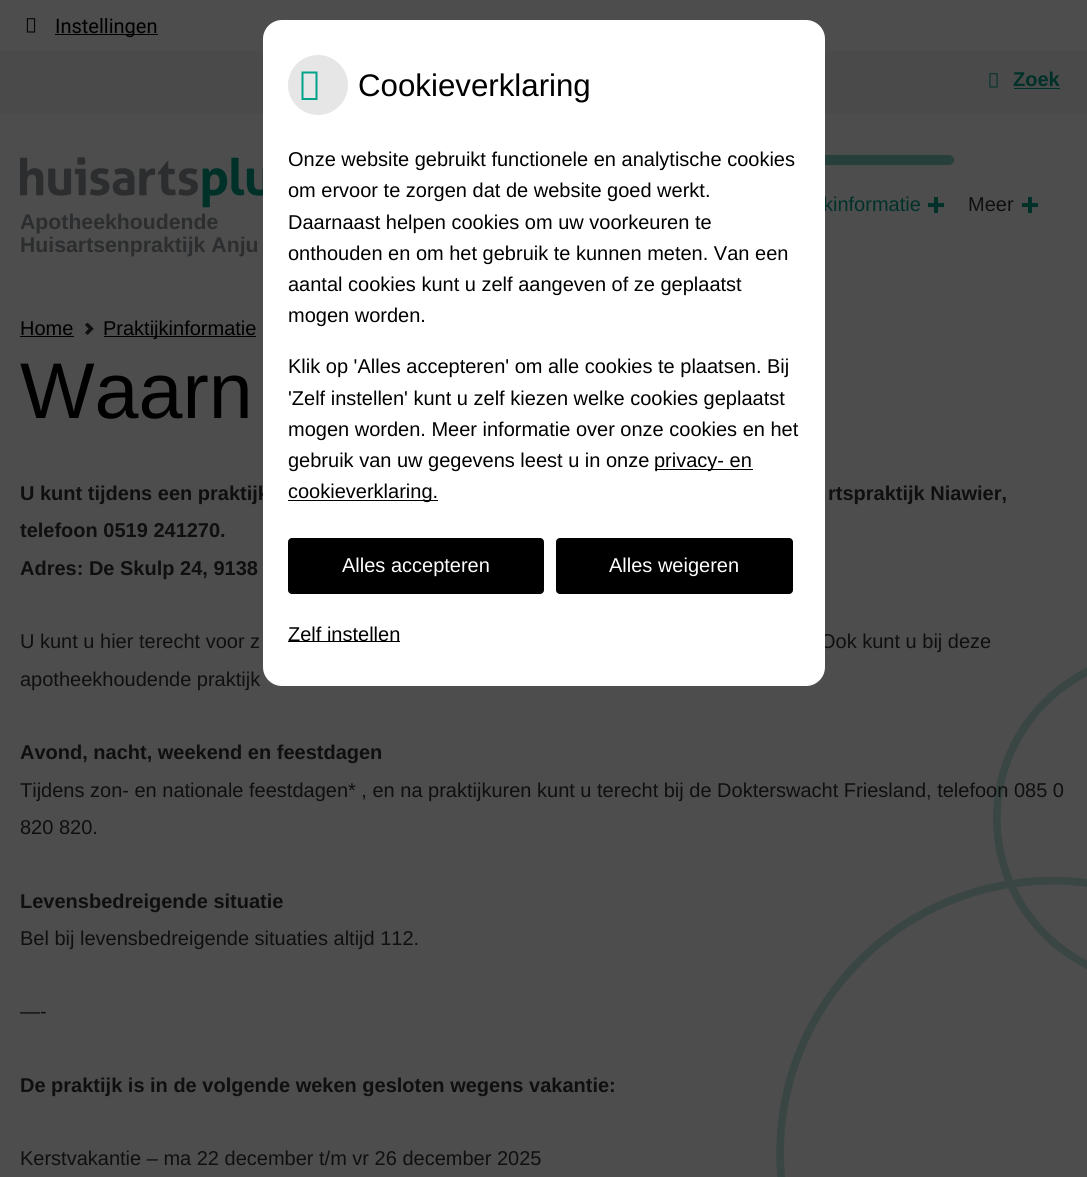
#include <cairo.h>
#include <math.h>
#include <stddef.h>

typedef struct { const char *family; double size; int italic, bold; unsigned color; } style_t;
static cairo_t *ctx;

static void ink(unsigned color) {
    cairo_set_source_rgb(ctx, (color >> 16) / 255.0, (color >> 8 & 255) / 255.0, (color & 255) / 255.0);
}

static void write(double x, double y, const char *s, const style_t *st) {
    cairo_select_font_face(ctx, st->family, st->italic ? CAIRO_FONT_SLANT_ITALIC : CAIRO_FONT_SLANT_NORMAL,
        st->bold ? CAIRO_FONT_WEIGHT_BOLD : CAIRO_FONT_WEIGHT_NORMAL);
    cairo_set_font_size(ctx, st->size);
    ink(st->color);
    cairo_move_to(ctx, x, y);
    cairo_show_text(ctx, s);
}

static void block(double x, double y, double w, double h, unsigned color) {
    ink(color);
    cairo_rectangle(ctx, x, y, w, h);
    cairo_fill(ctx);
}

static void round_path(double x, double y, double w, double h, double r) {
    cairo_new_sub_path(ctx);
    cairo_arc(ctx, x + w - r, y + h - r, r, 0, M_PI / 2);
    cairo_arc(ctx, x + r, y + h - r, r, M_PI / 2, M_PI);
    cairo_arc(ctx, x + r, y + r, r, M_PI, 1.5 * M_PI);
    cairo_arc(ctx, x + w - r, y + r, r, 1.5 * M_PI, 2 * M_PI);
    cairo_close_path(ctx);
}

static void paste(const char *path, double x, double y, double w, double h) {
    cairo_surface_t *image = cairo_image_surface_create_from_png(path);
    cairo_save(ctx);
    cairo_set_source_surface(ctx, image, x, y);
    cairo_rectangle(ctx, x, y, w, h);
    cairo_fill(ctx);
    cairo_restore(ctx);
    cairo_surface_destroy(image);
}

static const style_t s1 = {"Roboto", 20, 0, 0, 0x000000};
static const style_t s2 = {"Liberation Sans", 20, 0, 1, 0x003129};
static const style_t s3 = {"Liberation Sans", 20, 0, 0, 0x003129};
static const style_t s4 = {"Liberation Sans", 20, 0, 0, 0x0f0f0f};
static const style_t s5 = {"Liberation Sans", 21.25, 0, 1, 0x2c2d2e};
static const style_t s6 = {"Liberation Sans", 20, 0, 1, 0x0f0f0f};
static const style_t s7 = {"Liberation Sans", 31.25, 0, 0, 0x000000};
static const style_t s8 = {"Liberation Sans", 20, 0, 0, 0x000000};
static const style_t s9 = {"Liberation Sans", 20, 0, 0, 0xffffff};
static const style_t s10 = {"Liberation Sans", 79, 0, 0, 0x000000};

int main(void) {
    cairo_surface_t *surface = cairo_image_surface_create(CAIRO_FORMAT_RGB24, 1087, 1177);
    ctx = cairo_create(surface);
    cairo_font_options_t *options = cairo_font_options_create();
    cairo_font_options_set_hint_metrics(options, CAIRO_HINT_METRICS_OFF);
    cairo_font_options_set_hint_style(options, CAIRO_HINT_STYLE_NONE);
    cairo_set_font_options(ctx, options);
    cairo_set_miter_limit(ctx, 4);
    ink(0x4d4d4d);
    cairo_paint(ctx);
    paste("pic1.png", 26, 18, 10, 15);
    block(55, 34, 103, 1, 0x000000);
    write(55, 33, "Instellingen", &s1);
    block(0, 51, 1087, 63, 0x4a4a4a);
    paste("pic2.png", 989, 73, 9, 15);
    write(1013, 86, "Zoek", &s2);
    block(1014, 88, 46, 1, 0x003129);
    ink(0x263f3b);
    round_path(758, 155, 196, 10, 5);
    cairo_fill(ctx);
    write(823, 211, "kinformatie", &s3);
    block(934, 197, 4, 16, 0x003129);
    block(928, 203, 16, 4, 0x003129);
    write(968, 211, "Meer", &s4);
    block(1028, 197, 4, 16, 0x003129);
    block(1022, 203, 16, 4, 0x003129);
    paste("pic3.png", 20, 157, 243, 51);
    write(20, 229, "Apotheekhoudende", &s5);
    write(20, 252, "Huisartsenpraktijk Anju", &s5);
    write(20, 500, "U kunt tijdens een praktijk", &s6);
    write(820, 648, "Ook kunt u bij deze", &s4);
    paste("pic5.png", 776, 667, 311, 510);
    ink(0xffffff);
    round_path(263, 20, 562, 666, 19);
    cairo_fill(ctx);
    ink(0xe6e6e6);
    cairo_arc(ctx, 318, 85, 30, 0, 2 * M_PI);
    cairo_fill(ctx);
    ink(0x00a389);
    cairo_new_path(ctx);
    cairo_move_to(ctx, 301.5, 100);
    cairo_line_to(ctx, 301.5, 71.5);
    cairo_line_to(ctx, 317.5, 71.5);
    cairo_line_to(ctx, 317.5, 100);
    cairo_close_path(ctx);
    cairo_move_to(ctx, 303.5, 98);
    cairo_line_to(ctx, 315.5, 98);
    cairo_line_to(ctx, 315.5, 73.5);
    cairo_line_to(ctx, 303.5, 73.5);
    cairo_close_path(ctx);
    cairo_fill(ctx);
    write(358, 96, "Cookieverklaring", &s7);
    write(288, 166, "Onze website gebruikt functionele en analytische cookies", &s8);
    write(288, 197, "om ervoor te zorgen dat de website goed werkt.", &s8);
    write(288, 229, "Daarnaast helpen cookies om uw voorkeuren te", &s8);
    write(288, 260, "onthouden en om het gebruik te kunnen meten. Van een", &s8);
    write(288, 291, "aantal cookies kunt u zelf aangeven of ze geplaatst", &s8);
    write(288, 322, "mogen worden.", &s8);
    write(288, 373, "Klik op 'Alles accepteren' om alle cookies te plaatsen. Bij", &s8);
    write(288, 405, "'Zelf instellen' kunt u zelf kiezen welke cookies geplaatst", &s8);
    write(288, 436, "mogen worden. Meer informatie over onze cookies en het", &s8);
    write(288, 467, "gebruik van uw gegevens leest u in onze", &s8);
    block(655, 469, 98, 1, 0x000000);
    write(654, 467, "privacy- en", &s8);
    block(288, 500, 150, 1, 0x000000);
    write(288, 498, "cookieverklaring.", &s8);
    round_path(288, 538, 256, 56, 4);
    cairo_fill(ctx);
    write(342, 572, "Alles accepteren", &s9);
    ink(0x000000);
    round_path(556, 538, 237, 56, 4);
    cairo_fill(ctx);
    write(609, 572, "Alles weigeren", &s9);
    block(288, 641, 112, 1, 0x000000);
    write(288, 641, "Zelf instellen", &s8);
    write(20, 335, "Home", &s8);
    block(20, 336, 54, 1, 0x000000);
    paste("pic4.png", 85, 323, 9, 12);
    block(104, 336, 152, 1, 0x000000);
    write(103, 335, "Praktijkinformatie", &s8);
    write(20, 418, "Waarn", &s10);
    write(828, 500, "rtspraktijk Niawier,", &s6);
    write(20, 537, "telefoon 0519 241270.", &s6);
    write(20, 575, "Adres: De Skulp 24, 9138", &s6);
    write(20, 648, "U kunt u hier terecht voor z", &s4);
    write(20, 686, "apotheekhoudende praktijk", &s4);
    write(20, 759, "Avond, nacht, weekend en feestdagen", &s6);
    write(20, 797, "Tijdens zon- en nationale feestdagen* , en na praktijkuren kunt u terecht bij de Dokterswacht Friesland, telefoon 085 0", &s4);
    write(20, 834, "820 820.", &s4);
    write(20, 908, "Levensbedreigende situatie", &s6);
    write(20, 945, "Bel bij levensbedreigende situaties altijd 112.", &s4);
    write(20, 1018, "—-", &s4);
    write(20, 1092, "De praktijk is in de volgende weken gesloten wegens vakantie:", &s6);
    write(20, 1165, "Kerstvakantie – ma 22 december t/m vr 26 december 2025", &s4);
    cairo_surface_write_to_png(surface, "screenshot.png");
    cairo_font_options_destroy(options);
    cairo_destroy(ctx);
    cairo_surface_destroy(surface);
    return 0;
}
